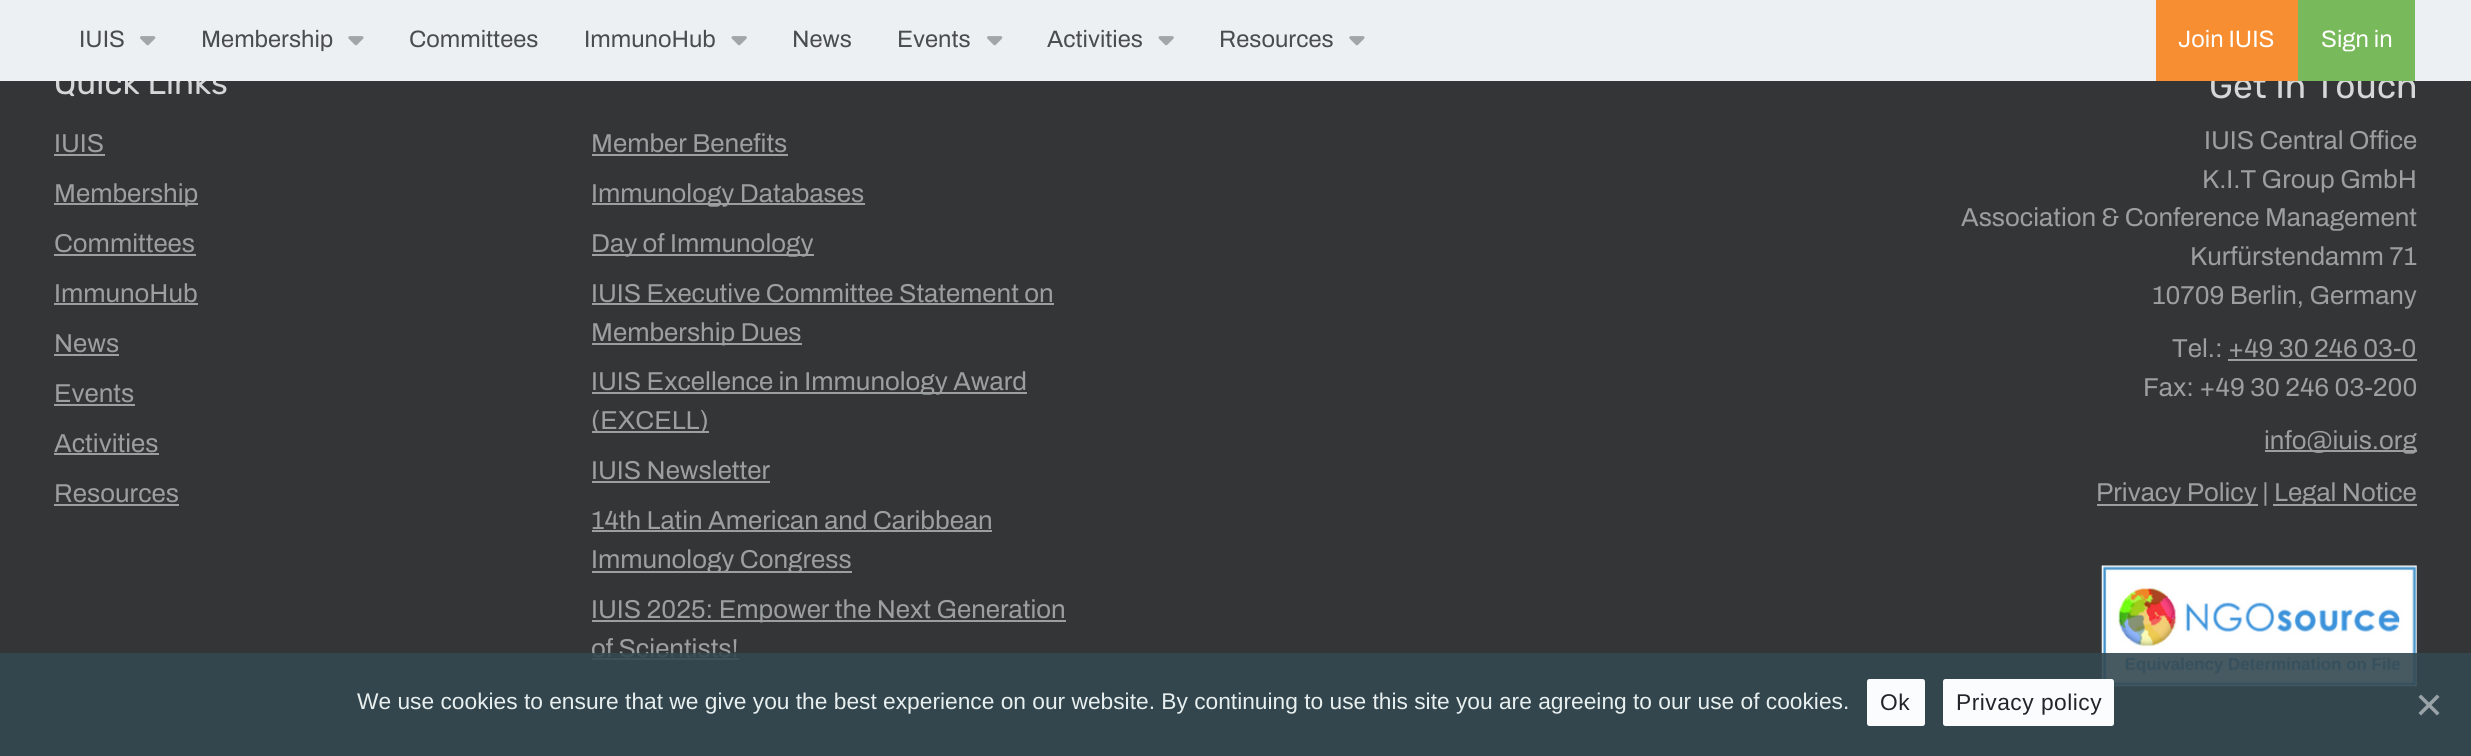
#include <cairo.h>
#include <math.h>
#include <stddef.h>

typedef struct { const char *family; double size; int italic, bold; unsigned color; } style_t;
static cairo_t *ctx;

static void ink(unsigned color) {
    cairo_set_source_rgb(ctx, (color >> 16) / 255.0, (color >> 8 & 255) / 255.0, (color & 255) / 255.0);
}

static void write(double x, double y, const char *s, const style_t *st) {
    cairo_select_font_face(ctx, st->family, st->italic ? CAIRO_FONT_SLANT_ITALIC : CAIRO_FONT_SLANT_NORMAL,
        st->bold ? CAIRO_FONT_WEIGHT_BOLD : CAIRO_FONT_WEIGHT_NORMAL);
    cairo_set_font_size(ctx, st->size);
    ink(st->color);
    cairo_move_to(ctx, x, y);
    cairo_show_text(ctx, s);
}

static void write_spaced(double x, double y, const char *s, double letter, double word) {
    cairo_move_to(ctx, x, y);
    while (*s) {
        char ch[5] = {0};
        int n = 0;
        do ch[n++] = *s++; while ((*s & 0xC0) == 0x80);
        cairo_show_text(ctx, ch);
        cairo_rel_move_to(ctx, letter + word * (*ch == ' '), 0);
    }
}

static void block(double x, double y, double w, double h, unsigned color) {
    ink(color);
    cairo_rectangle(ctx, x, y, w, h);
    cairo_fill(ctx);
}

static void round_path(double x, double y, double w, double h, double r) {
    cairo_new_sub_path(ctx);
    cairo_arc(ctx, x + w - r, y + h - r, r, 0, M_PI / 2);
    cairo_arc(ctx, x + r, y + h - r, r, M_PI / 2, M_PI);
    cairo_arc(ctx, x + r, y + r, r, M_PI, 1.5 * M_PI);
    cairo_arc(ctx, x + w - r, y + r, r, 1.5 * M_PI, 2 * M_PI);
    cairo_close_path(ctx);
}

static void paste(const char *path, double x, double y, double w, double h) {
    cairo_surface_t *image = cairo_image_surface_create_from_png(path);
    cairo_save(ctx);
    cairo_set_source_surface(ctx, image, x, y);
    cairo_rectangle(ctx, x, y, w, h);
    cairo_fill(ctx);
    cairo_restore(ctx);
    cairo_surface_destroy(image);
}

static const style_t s1 = {"Rubik Light", 33, 0, 0, 0xd6d7d8};
static const style_t s2 = {"Rubik Light", 35.25, 0, 0, 0xd6d7d8};
static const style_t s3 = {"Archivo SemiBold", 23.75, 0, 0, 0x494c50};
static const style_t s4 = {"Archivo SemiBold", 23.75, 0, 0, 0xffffff};
static const style_t s5 = {"Archivo SemiBold", 25.9, 0, 0, 0x9c9fa0};
static const style_t s6 = {"Liberation Sans", 22.75, 0, 0, 0xe8efef};

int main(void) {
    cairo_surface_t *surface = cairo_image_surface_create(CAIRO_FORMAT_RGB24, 2471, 756);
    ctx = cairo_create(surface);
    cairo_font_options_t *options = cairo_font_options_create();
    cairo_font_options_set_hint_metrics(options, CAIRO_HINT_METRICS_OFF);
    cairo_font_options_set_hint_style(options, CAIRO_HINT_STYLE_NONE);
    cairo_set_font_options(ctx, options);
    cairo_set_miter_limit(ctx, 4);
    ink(0x343536);
    cairo_paint(ctx);
    write(54, 94, "Quick Links", &s1);
    write(2209, 98, "Get In Touch", &s2);
    block(0, 0, 2471, 81, 0xedf0f3);
    write(79, 47, "IUIS", &s3);
    paste("pic1.png", 140, 36, 16, 10);
    write(201, 47, "Membership", &s3);
    paste("pic2.png", 348, 36, 16, 10);
    write(409, 47, "Committees", &s3);
    write(584, 47, "ImmunoHub", &s3);
    paste("pic3.png", 731, 36, 16, 10);
    write(792, 47, "News", &s3);
    write(897, 47, "Events", &s3);
    paste("pic1.png", 987, 36, 16, 10);
    write(1047, 47, "Activities", &s3);
    paste("pic3.png", 1158, 36, 16, 10);
    write(1219, 47, "Resources", &s3);
    paste("pic2.png", 1349, 36, 16, 10);
    block(2156, 0, 142, 81, 0xf78e32);
    write(2178, 47, "Join IUIS", &s4);
    block(2298, 0, 117, 81, 0x78b95b);
    write(2321, 47, "Sign in", &s4);
    write(54, 152, "IUIS", &s5);
    block(54, 154, 51, 2, 0x9c9fa0);
    block(54, 203, 144, 2, 0x9c9fa0);
    write(54, 202, "Membership", &s5);
    write(54, 252, "Committees", &s5);
    block(54, 254, 142, 2, 0x9c9fa0);
    write(54, 302, "ImmunoHub", &s5);
    block(54, 303, 144, 2, 0x9c9fa0);
    write(54, 352, "News", &s5);
    block(54, 354, 65, 2, 0x9c9fa0);
    write(54, 402, "Events", &s5);
    block(54, 404, 81, 2, 0x9c9fa0);
    write(54, 452, "Activities", &s5);
    block(54, 453, 105, 2, 0x9c9fa0);
    write(54, 502, "Resources", &s5);
    block(54, 504, 125, 2, 0x9c9fa0);
    write(591, 152, "Member Benefits", &s5);
    block(592, 154, 196, 2, 0x9c9fa0);
    block(592, 203, 273, 2, 0x9c9fa0);
    write(591, 202, "Immunology Databases", &s5);
    block(592, 254, 222, 2, 0x9c9fa0);
    write(591, 252, "Day of Immunology", &s5);
    write(591, 302, "IUIS Executive Committee Statement on", &s5);
    block(592, 303, 462, 2, 0x9c9fa0);
    block(592, 343, 210, 2, 0x9c9fa0);
    write(591, 341, "Membership Dues", &s5);
    block(592, 392, 435, 2, 0x9c9fa0);
    write(591, 390, "IUIS Excellence in Immunology Award", &s5);
    block(592, 431, 117, 2, 0x9c9fa0);
    write(591, 429, "(EXCELL)", &s5);
    write(591, 479, "IUIS Newsletter", &s5);
    block(592, 481, 178, 2, 0x9c9fa0);
    write(591, 529, "14th Latin American and Caribbean", &s5);
    block(592, 530, 400, 2, 0x9c9fa0);
    block(592, 571, 260, 2, 0x9c9fa0);
    write(591, 568, "Immunology Congress", &s5);
    block(592, 620, 474, 2, 0x9c9fa0);
    write(591, 618, "IUIS 2025: Empower the Next Generation", &s5);
    write(591, 657, "of Scientists!", &s5);
    block(592, 658, 147, 2, 0x9c9fa0);
    write(2204, 149, "IUIS Central Office", &s5);
    write(2202, 188, "K.I.T Group GmbH", &s5);
    write(1961, 226, "Association & Conference Management", &s5);
    write(2190, 265, "Kurfürstendamm 71", &s5);
    write(2152, 304, "10709 Berlin, Germany", &s5);
    write(2172, 357, "Tel.: +49 30 246 03-0", &s5);
    block(2228, 359, 189, 2, 0x9c9fa0);
    write(2143, 396, "Fax: +49 30 246 03-200", &s5);
    block(2265, 450, 152, 2, 0x9c9fa0);
    write(2264, 449, "info@iuis.org", &s5);
    block(2097, 504, 161, 2, 0x9c9fa0);
    write(2096, 501, "Privacy Policy |", &s5);
    block(2273, 504, 144, 2, 0x9c9fa0);
    write(2274, 501, "Legal Notice", &s5);
    paste("pic4.png", 2101, 565, 316, 122);
    cairo_set_source_rgba(ctx, 0.2, 0.286, 0.318, 0.9);
    cairo_rectangle(ctx, 0, 653, 2471, 103);
    cairo_fill(ctx);
    write(357, 709, "We use cookies to ensure that we give you the best experience on our website. By continuing to use this site you are agreeing to our use of cookies.", &s6);
    ink(0xfafcfe);
    round_path(1867, 679, 58, 47, 2.5);
    cairo_fill(ctx);
    ink(0x212529);
    write_spaced(1880, 710, "Ok", 0.5, 0);
    ink(0xfafcfe);
    round_path(1943, 679, 171, 47, 2.5);
    cairo_fill(ctx);
    ink(0x212529);
    write_spaced(1956, 710, "Privacy policy", 0.5, 0);
    ink(0x99a3a7);
    cairo_new_path(ctx);
    cairo_move_to(ctx, 2437, 694.5);
    cairo_line_to(ctx, 2439.5, 697);
    cairo_line_to(ctx, 2421, 715.5);
    cairo_line_to(ctx, 2418.5, 713);
    cairo_close_path(ctx);
    cairo_fill(ctx);
    cairo_new_path(ctx);
    cairo_move_to(ctx, 2418.5, 697);
    cairo_line_to(ctx, 2421, 694.5);
    cairo_line_to(ctx, 2439.5, 713);
    cairo_line_to(ctx, 2437, 715.5);
    cairo_close_path(ctx);
    cairo_fill(ctx);
    cairo_surface_write_to_png(surface, "screenshot.png");
    cairo_font_options_destroy(options);
    cairo_destroy(ctx);
    cairo_surface_destroy(surface);
    return 0;
}
